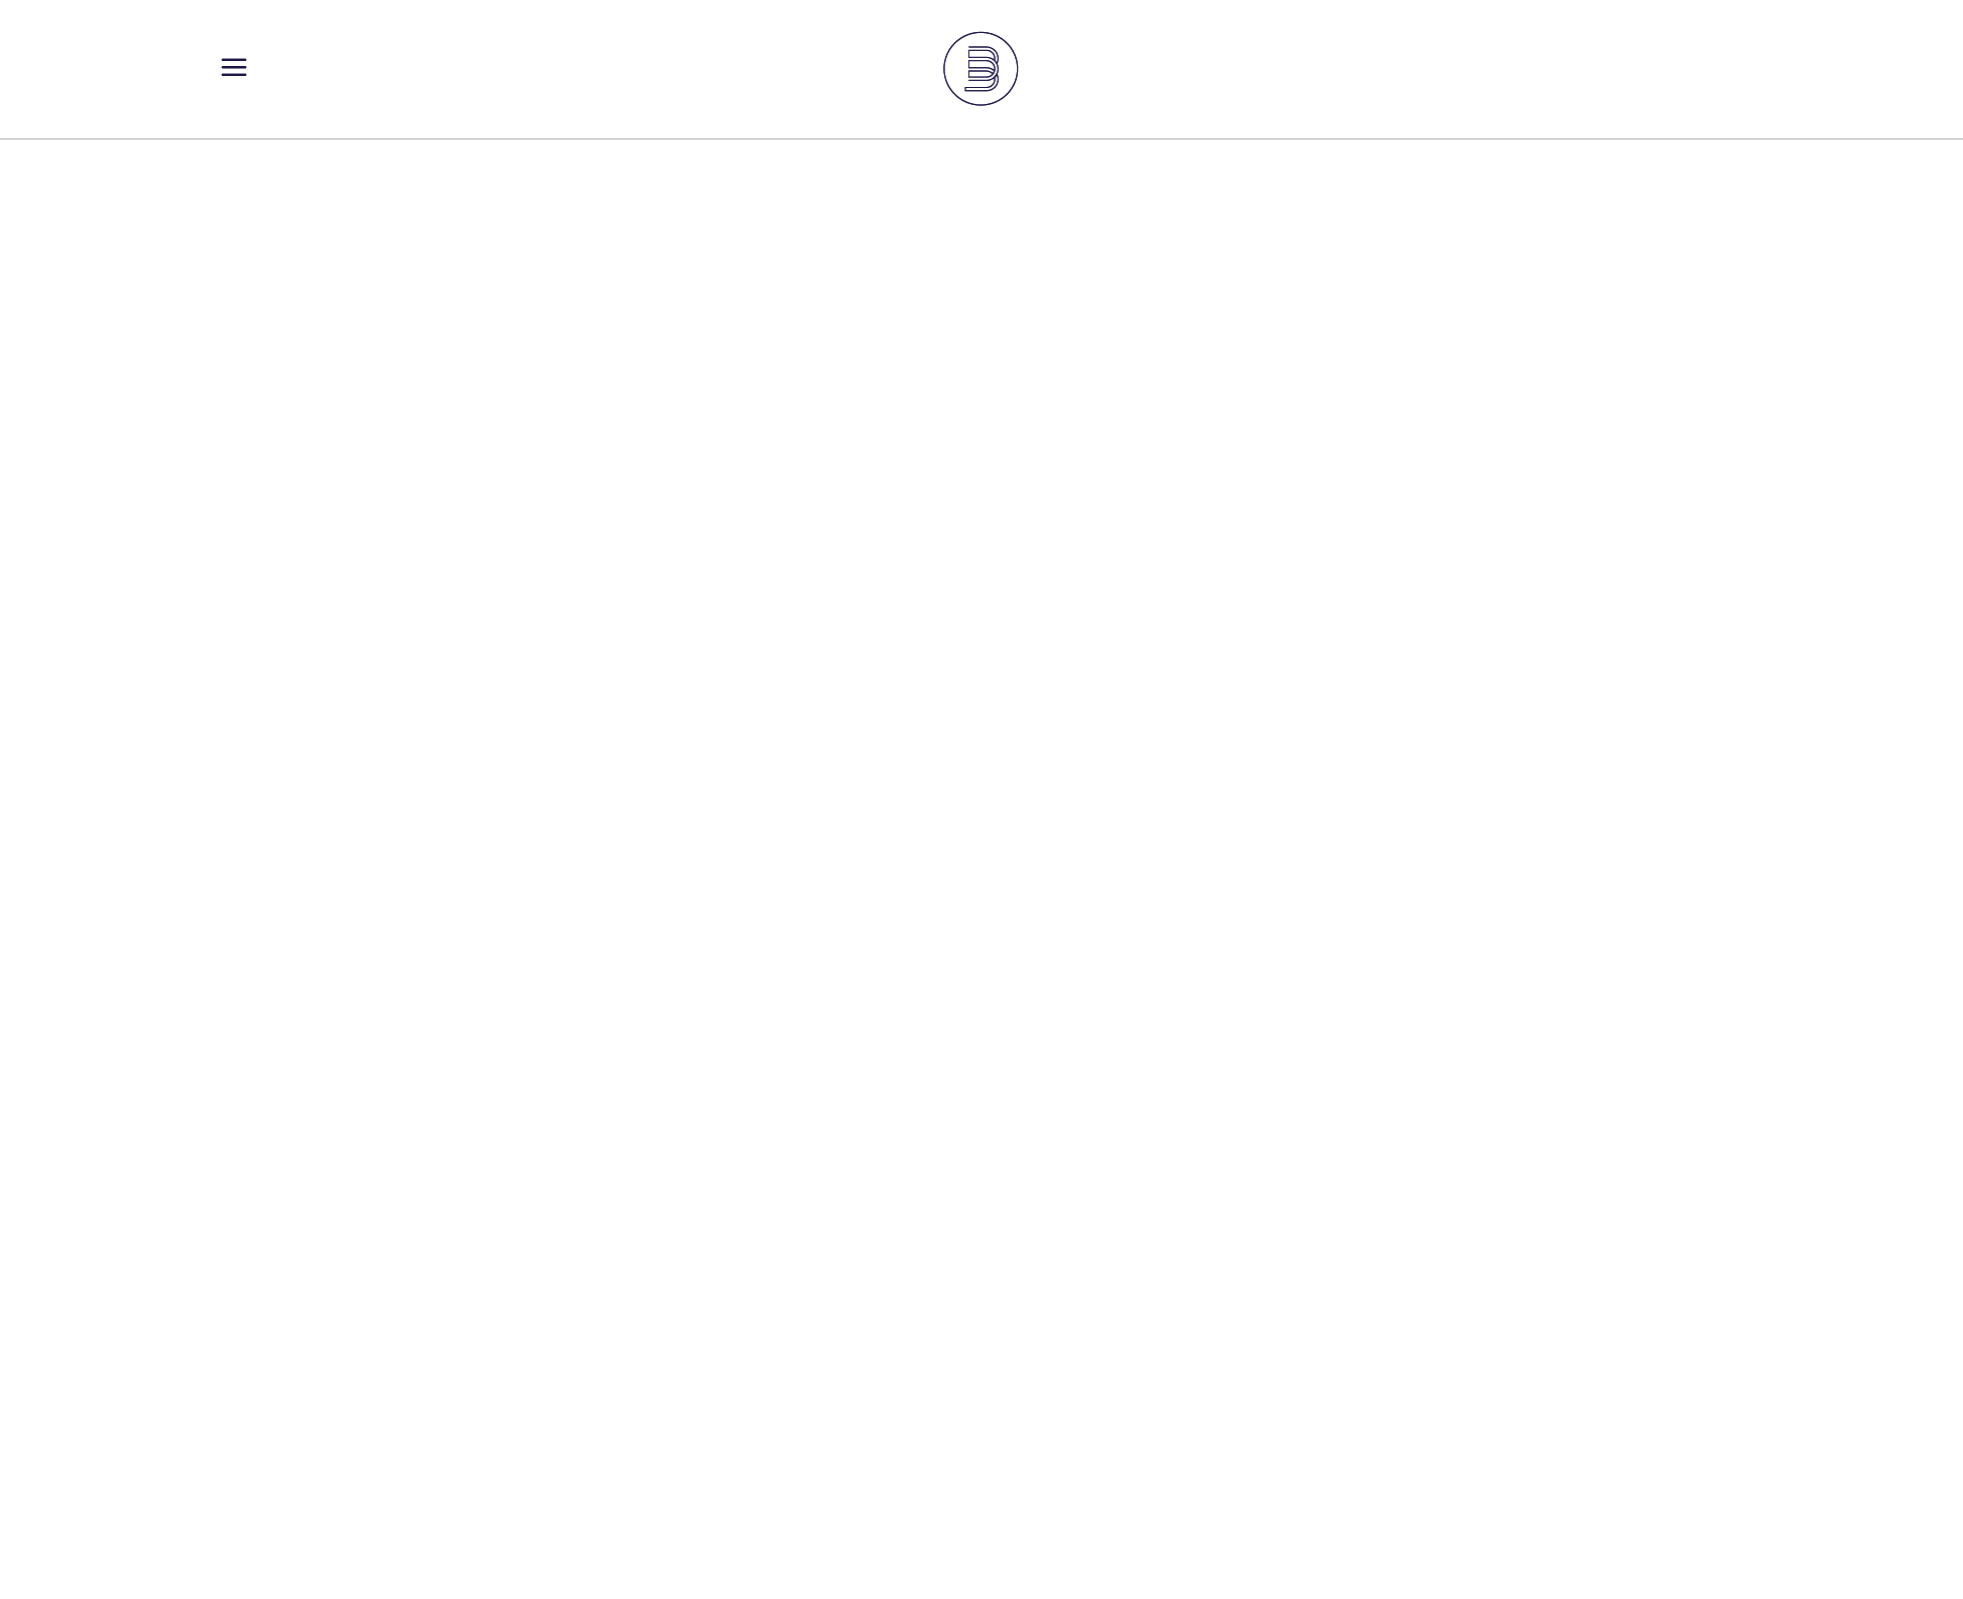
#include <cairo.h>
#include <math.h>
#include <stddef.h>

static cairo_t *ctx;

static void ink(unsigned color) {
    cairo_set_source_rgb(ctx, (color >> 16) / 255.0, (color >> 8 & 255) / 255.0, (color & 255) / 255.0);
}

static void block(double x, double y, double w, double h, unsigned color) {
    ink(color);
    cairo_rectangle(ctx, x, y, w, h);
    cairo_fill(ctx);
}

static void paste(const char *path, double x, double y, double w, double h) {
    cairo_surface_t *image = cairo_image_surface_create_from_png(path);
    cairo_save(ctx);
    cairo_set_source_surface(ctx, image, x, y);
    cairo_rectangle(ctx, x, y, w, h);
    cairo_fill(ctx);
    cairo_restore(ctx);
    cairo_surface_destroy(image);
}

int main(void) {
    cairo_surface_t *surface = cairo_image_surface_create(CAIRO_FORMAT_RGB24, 1963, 1599);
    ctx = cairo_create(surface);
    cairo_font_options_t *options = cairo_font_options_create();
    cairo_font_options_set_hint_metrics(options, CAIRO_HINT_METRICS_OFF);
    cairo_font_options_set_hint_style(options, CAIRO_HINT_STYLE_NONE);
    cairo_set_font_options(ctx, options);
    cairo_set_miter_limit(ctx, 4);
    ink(0xffffff);
    cairo_paint(ctx);
    block(0, 138, 1963, 2, 0xd2d2d2);
    paste("pic1.png", 221, 58, 26, 18);
    paste("pic2.png", 943, 31, 76, 75);
    cairo_surface_write_to_png(surface, "screenshot.png");
    cairo_font_options_destroy(options);
    cairo_destroy(ctx);
    cairo_surface_destroy(surface);
    return 0;
}
